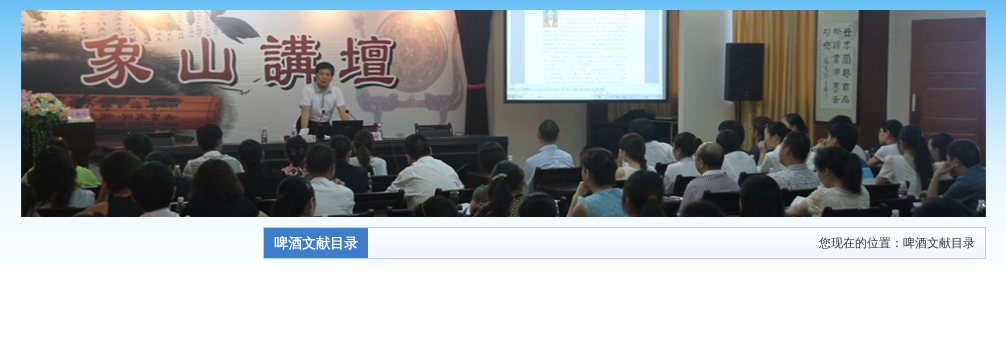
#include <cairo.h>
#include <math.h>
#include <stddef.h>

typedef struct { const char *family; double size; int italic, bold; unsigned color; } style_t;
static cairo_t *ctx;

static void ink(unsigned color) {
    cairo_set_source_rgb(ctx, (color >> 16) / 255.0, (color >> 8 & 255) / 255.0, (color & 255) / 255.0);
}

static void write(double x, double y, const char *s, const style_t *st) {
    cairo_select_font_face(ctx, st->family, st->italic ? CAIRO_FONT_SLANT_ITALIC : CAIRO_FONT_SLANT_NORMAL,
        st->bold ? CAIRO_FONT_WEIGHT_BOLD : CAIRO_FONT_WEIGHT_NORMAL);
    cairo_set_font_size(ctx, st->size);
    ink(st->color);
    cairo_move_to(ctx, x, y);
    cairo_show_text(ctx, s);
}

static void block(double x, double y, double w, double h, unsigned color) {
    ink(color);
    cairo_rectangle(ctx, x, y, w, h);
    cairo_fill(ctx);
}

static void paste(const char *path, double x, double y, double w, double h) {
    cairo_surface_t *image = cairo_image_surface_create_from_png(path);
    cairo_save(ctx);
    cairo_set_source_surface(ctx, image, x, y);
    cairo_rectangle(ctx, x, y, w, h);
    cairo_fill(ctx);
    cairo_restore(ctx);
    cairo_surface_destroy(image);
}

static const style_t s1 = {"WenQuanYi Zen Hei", 14, 0, 1, 0xffffff};
static const style_t s2 = {"WenQuanYi Zen Hei Medium", 12, 0, 0, 0x333333};

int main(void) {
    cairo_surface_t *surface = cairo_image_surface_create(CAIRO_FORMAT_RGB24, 1006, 349);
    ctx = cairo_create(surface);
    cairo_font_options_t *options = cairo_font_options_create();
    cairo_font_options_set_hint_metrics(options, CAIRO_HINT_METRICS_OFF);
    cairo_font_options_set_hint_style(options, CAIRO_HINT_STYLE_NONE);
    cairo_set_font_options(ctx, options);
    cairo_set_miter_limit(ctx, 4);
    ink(0xffffff);
    cairo_paint(ctx);
    paste("pic1.png", 0, 0, 1006, 265);
    paste("pic2.png", 21, 10, 965, 207);
    paste("pic3.png", 368, 228, 617, 30);
    block(263, 227, 723, 1, 0xaad5ff);
    block(985, 227, 1, 32, 0xaad5ff);
    block(263, 258, 723, 1, 0xaad5ff);
    block(263, 227, 1, 32, 0xaad5ff);
    block(264, 228, 104, 30, 0x3d7dca);
    write(274, 248, "啤酒文献目录", &s1);
    write(819, 247, "您现在的位置：啤酒文献目录", &s2);
    cairo_surface_write_to_png(surface, "screenshot.png");
    cairo_font_options_destroy(options);
    cairo_destroy(ctx);
    cairo_surface_destroy(surface);
    return 0;
}
